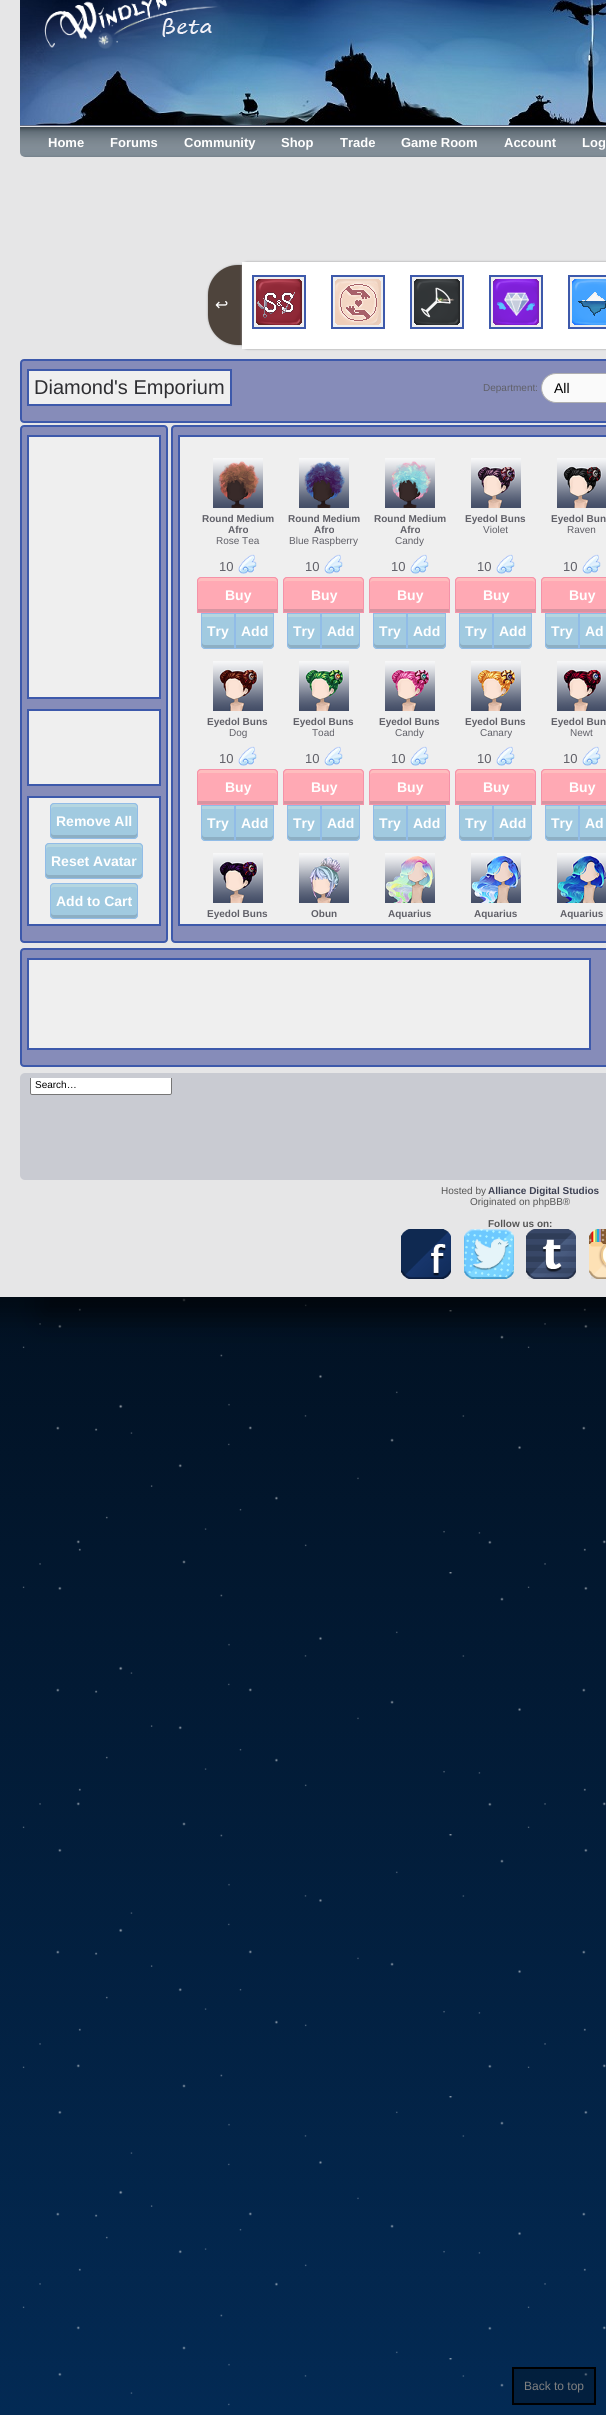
#include <cairo.h>
#include <math.h>
#include <stddef.h>

typedef struct { const char *family; double size; int italic, bold; unsigned color; } style_t;
static cairo_t *ctx;

static void ink(unsigned color) {
    cairo_set_source_rgb(ctx, (color >> 16) / 255.0, (color >> 8 & 255) / 255.0, (color & 255) / 255.0);
}

static void write(double x, double y, const char *s, const style_t *st) {
    cairo_select_font_face(ctx, st->family, st->italic ? CAIRO_FONT_SLANT_ITALIC : CAIRO_FONT_SLANT_NORMAL,
        st->bold ? CAIRO_FONT_WEIGHT_BOLD : CAIRO_FONT_WEIGHT_NORMAL);
    cairo_set_font_size(ctx, st->size);
    ink(st->color);
    cairo_move_to(ctx, x, y);
    cairo_show_text(ctx, s);
}

static void block(double x, double y, double w, double h, unsigned color) {
    ink(color);
    cairo_rectangle(ctx, x, y, w, h);
    cairo_fill(ctx);
}

static void round_path(double x, double y, double w, double h, double r) {
    cairo_new_sub_path(ctx);
    cairo_arc(ctx, x + w - r, y + h - r, r, 0, M_PI / 2);
    cairo_arc(ctx, x + r, y + h - r, r, M_PI / 2, M_PI);
    cairo_arc(ctx, x + r, y + r, r, M_PI, 1.5 * M_PI);
    cairo_arc(ctx, x + w - r, y + r, r, 1.5 * M_PI, 2 * M_PI);
    cairo_close_path(ctx);
}

static void blur_box(double x, double y, double w, double h, double r, double blur, double alpha) {
    cairo_push_group_with_content(ctx, CAIRO_CONTENT_ALPHA);
    cairo_set_operator(ctx, CAIRO_OPERATOR_SOURCE);
    for (int i = 15; i >= -15 && fmin(w, h) + blur * i / 3 > 0; i -= 2) {
        double e = blur * i / 6;
        cairo_set_source_rgba(ctx, 0, 0, 0, alpha * erfc((i - 1) / 8.5) / 2);
        round_path(x - e, y - e, w + 2 * e, h + 2 * e, fmax(0, fmin(r + e + blur * .6, fmin(w, h) / 2 + e)));
        cairo_fill(ctx);
    }
    cairo_pattern_t *soft = cairo_pop_group(ctx);
    cairo_mask(ctx, soft);
    cairo_pattern_destroy(soft);
}

static void paste(const char *path, double x, double y, double w, double h) {
    cairo_surface_t *image = cairo_image_surface_create_from_png(path);
    cairo_save(ctx);
    cairo_set_source_surface(ctx, image, x, y);
    cairo_rectangle(ctx, x, y, w, h);
    cairo_fill(ctx);
    cairo_restore(ctx);
    cairo_surface_destroy(image);
}

static const style_t s1 = {"Liberation Sans", 13, 0, 1, 0xffffff};
static const style_t s2 = {"DejaVu Sans", 16, 0, 0, 0xffffff};
static const style_t s3 = {"Liberation Sans", 20, 0, 0, 0x2e2e32};
static const style_t s4 = {"Liberation Sans", 10, 0, 0, 0x606068};
static const style_t s5 = {"Liberation Sans", 14, 0, 0, 0x000000};
static const style_t s6 = {"Liberation Sans", 14, 0, 1, 0xffffff};
static const style_t s7 = {"Liberation Sans", 10, 0, 1, 0x606068};
static const style_t s8 = {"Liberation Sans", 13, 0, 0, 0x606068};
static const style_t s9 = {"Liberation Sans", 10, 0, 0, 0x000000};
static const style_t s10 = {"Liberation Sans", 10, 0, 0, 0x555555};
static const style_t s11 = {"Liberation Sans", 10, 0, 1, 0x3d4153};
static const style_t s12 = {"Liberation Sans", 10, 0, 1, 0x555555};
static const style_t s13 = {"Liberation Sans", 12, 0, 0, 0x808080};

int main(void) {
    cairo_surface_t *surface = cairo_image_surface_create(CAIRO_FORMAT_RGB24, 606, 2415);
    ctx = cairo_create(surface);
    cairo_font_options_t *options = cairo_font_options_create();
    cairo_font_options_set_hint_metrics(options, CAIRO_HINT_METRICS_OFF);
    cairo_font_options_set_hint_style(options, CAIRO_HINT_STYLE_NONE);
    cairo_set_font_options(ctx, options);
    cairo_set_miter_limit(ctx, 4);
    ink(0xffffff);
    cairo_paint(ctx);
    paste("pic1.png", 0, 1297, 606, 1118);
    paste("pic2.png", 22, 1304, 564, 1102);
    ink(0x000000);
    blur_box(-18, 6, 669, 1309, 0, 15, 0.44);
    blur_box(42, 6, 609, 1309, 0, 15, 0.44);
    block(0, 0, 606, 1297, 0xe6e6e7);
    block(20, 125, 586, 1, 0x646f8a);
    paste("pic3.png", 20, 0, 586, 125);
    paste("pic4.png", 44, 0, 174, 49);
    paste("pic5.png", 162, 18, 50, 19);
    paste("pic6.png", 20, 127, 586, 30);
    write(48, 147, "Home", &s1);
    write(110, 147, "Forums", &s1);
    write(184, 147, "Community", &s1);
    write(281, 147, "Shop", &s1);
    write(340, 147, "Trade", &s1);
    write(401, 147, "Game Room", &s1);
    write(504, 147, "Account", &s1);
    write(582, 147, "Log", &s1);
    ink(0x999999);
    blur_box(208, 265, 62, 80, 30, 1, 1);
    ink(0x4e443c);
    round_path(208, 265, 62, 80, 30);
    cairo_fill(ctx);
    write(215, 310, "↩", &s2);
    ink(0x999999);
    blur_box(242, 262, 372, 87, 5, 1, 1);
    ink(0xffffff);
    cairo_rectangle(ctx, 247, 267, 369, 77);
    cairo_fill_preserve(ctx);
    cairo_set_line_width(ctx, 10);
    cairo_stroke(ctx);
    ink(0xefefef);
    cairo_rectangle(ctx, 253, 276, 52, 52);
    cairo_fill_preserve(ctx);
    ink(0x3d59ab);
    cairo_set_line_width(ctx, 2);
    cairo_stroke(ctx);
    paste("pic7.png", 256, 279, 46, 46);
    ink(0xefefef);
    cairo_rectangle(ctx, 332, 276, 52, 52);
    cairo_fill_preserve(ctx);
    ink(0x3d59ab);
    cairo_stroke(ctx);
    paste("pic8.png", 335, 279, 46, 46);
    ink(0xefefef);
    cairo_rectangle(ctx, 411, 276, 52, 52);
    cairo_fill_preserve(ctx);
    ink(0x3d59ab);
    cairo_stroke(ctx);
    paste("pic9.png", 414, 279, 46, 46);
    ink(0xefefef);
    cairo_rectangle(ctx, 490, 276, 52, 52);
    cairo_fill_preserve(ctx);
    ink(0x3d59ab);
    cairo_stroke(ctx);
    paste("pic10.png", 493, 279, 46, 46);
    ink(0xefefef);
    cairo_rectangle(ctx, 569, 276, 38, 52);
    cairo_fill_preserve(ctx);
    ink(0x3d59ab);
    cairo_stroke(ctx);
    paste("pic11.png", 572, 279, 34, 46);
    ink(0x868cb9);
    round_path(21, 360, 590, 62, 3);
    cairo_fill_preserve(ctx);
    ink(0x3d59ab);
    cairo_stroke(ctx);
    ink(0xefefef);
    cairo_rectangle(ctx, 28, 370, 203, 35);
    cairo_fill_preserve(ctx);
    ink(0x3d59ab);
    cairo_stroke(ctx);
    write(34, 394, "Diamond's Emporium", &s3);
    write(483, 391, "Department:", &s4);
    ink(0xfafafa);
    round_path(541.5, 373.5, 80, 29, 14.5);
    cairo_fill_preserve(ctx);
    ink(0xaeaeb0);
    cairo_set_line_width(ctx, 1);
    cairo_stroke(ctx);
    write(554, 393, "All", &s5);
    ink(0x868cb9);
    round_path(21, 426, 146, 516, 3);
    cairo_fill_preserve(ctx);
    ink(0x3d59ab);
    cairo_set_line_width(ctx, 2);
    cairo_stroke(ctx);
    ink(0xefefef);
    cairo_rectangle(ctx, 28, 436, 132, 262);
    cairo_fill_preserve(ctx);
    ink(0x3d59ab);
    cairo_stroke(ctx);
    ink(0xefefef);
    cairo_rectangle(ctx, 28, 710, 132, 75);
    cairo_fill_preserve(ctx);
    ink(0x3d59ab);
    cairo_stroke(ctx);
    ink(0xefefef);
    cairo_rectangle(ctx, 28, 797, 132, 128);
    cairo_fill_preserve(ctx);
    ink(0x3d59ab);
    cairo_stroke(ctx);
    ink(0xa1cae0);
    round_path(50, 803, 88, 36, 4);
    cairo_fill(ctx);
    ink(0xb5d6e0);
    cairo_new_path(ctx);
    cairo_move_to(ctx, 54, 807);
    cairo_line_to(ctx, 134, 807);
    cairo_curve_to(ctx, 136, 807, 137, 808, 137, 810);
    cairo_line_to(ctx, 137, 807);
    cairo_curve_to(ctx, 137, 805, 136, 804, 134, 804);
    cairo_line_to(ctx, 54, 804);
    cairo_curve_to(ctx, 52, 804, 51, 805, 51, 807);
    cairo_line_to(ctx, 51, 810);
    cairo_curve_to(ctx, 51, 808, 52, 807, 54, 807);
    cairo_close_path(ctx);
    cairo_fill(ctx);
    ink(0x8dafc4);
    cairo_new_path(ctx);
    cairo_move_to(ctx, 51, 832);
    cairo_line_to(ctx, 51, 835);
    cairo_curve_to(ctx, 51, 837, 52, 838, 54, 838);
    cairo_line_to(ctx, 134, 838);
    cairo_curve_to(ctx, 136, 838, 137, 837, 137, 835);
    cairo_line_to(ctx, 137, 832);
    cairo_curve_to(ctx, 137, 834, 136, 835, 134, 835);
    cairo_line_to(ctx, 54, 835);
    cairo_curve_to(ctx, 52, 835, 51, 834, 51, 832);
    cairo_close_path(ctx);
    cairo_fill(ctx);
    round_path(50.5, 803.5, 87, 35, 3.5);
    ink(0x91bce7);
    cairo_set_line_width(ctx, 1);
    cairo_stroke(ctx);
    write(56, 826, "Remove All", &s6);
    ink(0xa1cae0);
    round_path(45, 843, 98, 36, 4);
    cairo_fill(ctx);
    ink(0xb5d6e0);
    cairo_new_path(ctx);
    cairo_move_to(ctx, 49, 847);
    cairo_line_to(ctx, 139, 847);
    cairo_curve_to(ctx, 141, 847, 142, 848, 142, 850);
    cairo_line_to(ctx, 142, 847);
    cairo_curve_to(ctx, 142, 845, 141, 844, 139, 844);
    cairo_line_to(ctx, 49, 844);
    cairo_curve_to(ctx, 47, 844, 46, 845, 46, 847);
    cairo_line_to(ctx, 46, 850);
    cairo_curve_to(ctx, 46, 848, 47, 847, 49, 847);
    cairo_close_path(ctx);
    cairo_fill(ctx);
    ink(0x8dafc4);
    cairo_new_path(ctx);
    cairo_move_to(ctx, 46, 872);
    cairo_line_to(ctx, 46, 875);
    cairo_curve_to(ctx, 46, 877, 47, 878, 49, 878);
    cairo_line_to(ctx, 139, 878);
    cairo_curve_to(ctx, 141, 878, 142, 877, 142, 875);
    cairo_line_to(ctx, 142, 872);
    cairo_curve_to(ctx, 142, 874, 141, 875, 139, 875);
    cairo_line_to(ctx, 49, 875);
    cairo_curve_to(ctx, 47, 875, 46, 874, 46, 872);
    cairo_close_path(ctx);
    cairo_fill(ctx);
    round_path(45.5, 843.5, 97, 35, 3.5);
    ink(0x91bce7);
    cairo_stroke(ctx);
    write(51, 866, "Reset Avatar", &s6);
    ink(0xa1cae0);
    round_path(50, 883, 88, 36, 4);
    cairo_fill(ctx);
    ink(0xb5d6e0);
    cairo_new_path(ctx);
    cairo_move_to(ctx, 54, 887);
    cairo_line_to(ctx, 134, 887);
    cairo_curve_to(ctx, 136, 887, 137, 888, 137, 890);
    cairo_line_to(ctx, 137, 887);
    cairo_curve_to(ctx, 137, 885, 136, 884, 134, 884);
    cairo_line_to(ctx, 54, 884);
    cairo_curve_to(ctx, 52, 884, 51, 885, 51, 887);
    cairo_line_to(ctx, 51, 890);
    cairo_curve_to(ctx, 51, 888, 52, 887, 54, 887);
    cairo_close_path(ctx);
    cairo_fill(ctx);
    ink(0x8dafc4);
    cairo_new_path(ctx);
    cairo_move_to(ctx, 51, 912);
    cairo_line_to(ctx, 51, 915);
    cairo_curve_to(ctx, 51, 917, 52, 918, 54, 918);
    cairo_line_to(ctx, 134, 918);
    cairo_curve_to(ctx, 136, 918, 137, 917, 137, 915);
    cairo_line_to(ctx, 137, 912);
    cairo_curve_to(ctx, 137, 914, 136, 915, 134, 915);
    cairo_line_to(ctx, 54, 915);
    cairo_curve_to(ctx, 52, 915, 51, 914, 51, 912);
    cairo_close_path(ctx);
    cairo_fill(ctx);
    round_path(50.5, 883.5, 87, 35, 3.5);
    ink(0x91bce7);
    cairo_stroke(ctx);
    write(56, 906, "Add to Cart", &s6);
    ink(0x868cb9);
    round_path(172, 426, 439, 516, 3);
    cairo_fill_preserve(ctx);
    ink(0x3d59ab);
    cairo_set_line_width(ctx, 2);
    cairo_stroke(ctx);
    ink(0xefefef);
    cairo_rectangle(ctx, 179, 436, 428, 489);
    cairo_fill_preserve(ctx);
    ink(0x3d59ab);
    cairo_stroke(ctx);
    paste("pic12.png", 213, 458, 50, 50);
    write(202, 522, "Round Medium", &s7);
    write(228, 533, "Afro", &s7);
    write(216, 544, "Rose Tea", &s4);
    write(219, 571, "10", &s8);
    paste("pic13.png", 238, 554, 19, 20);
    ink(0xffa9b4);
    cairo_new_path(ctx);
    cairo_move_to(ctx, 201, 577);
    cairo_line_to(ctx, 274, 577);
    cairo_curve_to(ctx, 276, 577, 278, 579, 278, 581);
    cairo_line_to(ctx, 278, 613);
    cairo_line_to(ctx, 197, 613);
    cairo_line_to(ctx, 197, 581);
    cairo_curve_to(ctx, 197, 579, 199, 577, 201, 577);
    cairo_close_path(ctx);
    cairo_fill(ctx);
    ink(0xfebdbe);
    cairo_new_path(ctx);
    cairo_move_to(ctx, 201, 581);
    cairo_line_to(ctx, 274, 581);
    cairo_curve_to(ctx, 276, 581, 277, 582, 277, 584);
    cairo_curve_to(ctx, 277, 575, 272, 578, 262, 578);
    cairo_line_to(ctx, 213, 578);
    cairo_curve_to(ctx, 203, 578, 198, 575, 198, 584);
    cairo_curve_to(ctx, 198, 582, 199, 581, 201, 581);
    cairo_close_path(ctx);
    cairo_fill(ctx);
    block(198, 609, 79, 3, 0xd894a1);
    cairo_new_path(ctx);
    cairo_move_to(ctx, 201, 577.5);
    cairo_line_to(ctx, 274, 577.5);
    cairo_curve_to(ctx, 276, 577.5, 277.5, 579, 277.5, 581);
    cairo_line_to(ctx, 277.5, 612.5);
    cairo_line_to(ctx, 197.5, 612.5);
    cairo_line_to(ctx, 197.5, 581);
    cairo_curve_to(ctx, 197.5, 579, 199, 577.5, 201, 577.5);
    cairo_close_path(ctx);
    ink(0xf592a8);
    cairo_set_line_width(ctx, 1);
    cairo_stroke(ctx);
    write(225, 600, "Buy", &s6);
    ink(0xa1cae0);
    cairo_new_path(ctx);
    cairo_move_to(ctx, 201, 613);
    cairo_line_to(ctx, 235, 613);
    cairo_line_to(ctx, 235, 649);
    cairo_line_to(ctx, 205, 649);
    cairo_curve_to(ctx, 203, 649, 201, 647, 201, 645);
    cairo_close_path(ctx);
    cairo_fill(ctx);
    block(202, 614, 32, 3, 0xb5d6e0);
    ink(0x8dafc4);
    cairo_new_path(ctx);
    cairo_move_to(ctx, 202, 642);
    cairo_line_to(ctx, 202, 645);
    cairo_curve_to(ctx, 202, 646.5, 203.5, 648, 205, 648);
    cairo_line_to(ctx, 234, 648);
    cairo_line_to(ctx, 234, 645);
    cairo_line_to(ctx, 205, 645);
    cairo_curve_to(ctx, 203, 645, 202, 644, 202, 642);
    cairo_close_path(ctx);
    cairo_fill(ctx);
    cairo_new_path(ctx);
    cairo_move_to(ctx, 201.5, 613.5);
    cairo_line_to(ctx, 234.5, 613.5);
    cairo_line_to(ctx, 234.5, 648.5);
    cairo_line_to(ctx, 205, 648.5);
    cairo_curve_to(ctx, 203, 648.5, 201.5, 647, 201.5, 645);
    cairo_close_path(ctx);
    ink(0x91bce7);
    cairo_stroke(ctx);
    write(207, 636, "Try", &s6);
    ink(0xa1cae0);
    cairo_new_path(ctx);
    cairo_move_to(ctx, 235, 613);
    cairo_line_to(ctx, 274, 613);
    cairo_line_to(ctx, 274, 645);
    cairo_curve_to(ctx, 274, 647, 272, 649, 270, 649);
    cairo_line_to(ctx, 235, 649);
    cairo_close_path(ctx);
    cairo_fill(ctx);
    block(236, 614, 37, 3, 0xb5d6e0);
    ink(0x8dafc4);
    cairo_new_path(ctx);
    cairo_move_to(ctx, 236, 645);
    cairo_line_to(ctx, 236, 648);
    cairo_line_to(ctx, 270, 648);
    cairo_curve_to(ctx, 271.5, 648, 273, 646.5, 273, 645);
    cairo_line_to(ctx, 273, 642);
    cairo_curve_to(ctx, 273, 644, 272, 645, 270, 645);
    cairo_close_path(ctx);
    cairo_fill(ctx);
    cairo_new_path(ctx);
    cairo_move_to(ctx, 235.5, 613.5);
    cairo_line_to(ctx, 273.5, 613.5);
    cairo_line_to(ctx, 273.5, 645);
    cairo_curve_to(ctx, 273.5, 647, 272, 648.5, 270, 648.5);
    cairo_line_to(ctx, 235.5, 648.5);
    cairo_close_path(ctx);
    ink(0x91bce7);
    cairo_stroke(ctx);
    write(241, 636, "Add", &s6);
    paste("pic14.png", 299, 458, 50, 50);
    write(288, 522, "Round Medium", &s7);
    write(314, 533, "Afro", &s7);
    write(289, 544, "Blue Raspberry", &s4);
    write(305, 571, "10", &s8);
    paste("pic13.png", 324, 554, 19, 20);
    ink(0xffa9b4);
    cairo_new_path(ctx);
    cairo_move_to(ctx, 287, 577);
    cairo_line_to(ctx, 360, 577);
    cairo_curve_to(ctx, 362, 577, 364, 579, 364, 581);
    cairo_line_to(ctx, 364, 613);
    cairo_line_to(ctx, 283, 613);
    cairo_line_to(ctx, 283, 581);
    cairo_curve_to(ctx, 283, 579, 285, 577, 287, 577);
    cairo_close_path(ctx);
    cairo_fill(ctx);
    ink(0xfebdbe);
    cairo_new_path(ctx);
    cairo_move_to(ctx, 287, 581);
    cairo_line_to(ctx, 360, 581);
    cairo_curve_to(ctx, 362, 581, 363, 582, 363, 584);
    cairo_curve_to(ctx, 363, 575, 358, 578, 348, 578);
    cairo_line_to(ctx, 299, 578);
    cairo_curve_to(ctx, 289, 578, 284, 575, 284, 584);
    cairo_curve_to(ctx, 284, 582, 285, 581, 287, 581);
    cairo_close_path(ctx);
    cairo_fill(ctx);
    block(284, 609, 79, 3, 0xd894a1);
    cairo_new_path(ctx);
    cairo_move_to(ctx, 287, 577.5);
    cairo_line_to(ctx, 360, 577.5);
    cairo_curve_to(ctx, 362, 577.5, 363.5, 579, 363.5, 581);
    cairo_line_to(ctx, 363.5, 612.5);
    cairo_line_to(ctx, 283.5, 612.5);
    cairo_line_to(ctx, 283.5, 581);
    cairo_curve_to(ctx, 283.5, 579, 285, 577.5, 287, 577.5);
    cairo_close_path(ctx);
    ink(0xf592a8);
    cairo_stroke(ctx);
    write(311, 600, "Buy", &s6);
    ink(0xa1cae0);
    cairo_new_path(ctx);
    cairo_move_to(ctx, 287, 613);
    cairo_line_to(ctx, 321, 613);
    cairo_line_to(ctx, 321, 649);
    cairo_line_to(ctx, 291, 649);
    cairo_curve_to(ctx, 289, 649, 287, 647, 287, 645);
    cairo_close_path(ctx);
    cairo_fill(ctx);
    block(288, 614, 32, 3, 0xb5d6e0);
    ink(0x8dafc4);
    cairo_new_path(ctx);
    cairo_move_to(ctx, 288, 642);
    cairo_line_to(ctx, 288, 645);
    cairo_curve_to(ctx, 288, 646.5, 289.5, 648, 291, 648);
    cairo_line_to(ctx, 320, 648);
    cairo_line_to(ctx, 320, 645);
    cairo_line_to(ctx, 291, 645);
    cairo_curve_to(ctx, 289, 645, 288, 644, 288, 642);
    cairo_close_path(ctx);
    cairo_fill(ctx);
    cairo_new_path(ctx);
    cairo_move_to(ctx, 287.5, 613.5);
    cairo_line_to(ctx, 320.5, 613.5);
    cairo_line_to(ctx, 320.5, 648.5);
    cairo_line_to(ctx, 291, 648.5);
    cairo_curve_to(ctx, 289, 648.5, 287.5, 647, 287.5, 645);
    cairo_close_path(ctx);
    ink(0x91bce7);
    cairo_stroke(ctx);
    write(293, 636, "Try", &s6);
    ink(0xa1cae0);
    cairo_new_path(ctx);
    cairo_move_to(ctx, 321, 613);
    cairo_line_to(ctx, 360, 613);
    cairo_line_to(ctx, 360, 645);
    cairo_curve_to(ctx, 360, 647, 358, 649, 356, 649);
    cairo_line_to(ctx, 321, 649);
    cairo_close_path(ctx);
    cairo_fill(ctx);
    block(322, 614, 37, 3, 0xb5d6e0);
    ink(0x8dafc4);
    cairo_new_path(ctx);
    cairo_move_to(ctx, 322, 645);
    cairo_line_to(ctx, 322, 648);
    cairo_line_to(ctx, 356, 648);
    cairo_curve_to(ctx, 357.5, 648, 359, 646.5, 359, 645);
    cairo_line_to(ctx, 359, 642);
    cairo_curve_to(ctx, 359, 644, 358, 645, 356, 645);
    cairo_close_path(ctx);
    cairo_fill(ctx);
    cairo_new_path(ctx);
    cairo_move_to(ctx, 321.5, 613.5);
    cairo_line_to(ctx, 359.5, 613.5);
    cairo_line_to(ctx, 359.5, 645);
    cairo_curve_to(ctx, 359.5, 647, 358, 648.5, 356, 648.5);
    cairo_line_to(ctx, 321.5, 648.5);
    cairo_close_path(ctx);
    ink(0x91bce7);
    cairo_stroke(ctx);
    write(327, 636, "Add", &s6);
    paste("pic15.png", 385, 458, 50, 50);
    write(374, 522, "Round Medium", &s7);
    write(400, 533, "Afro", &s7);
    write(395, 544, "Candy", &s4);
    write(391, 571, "10", &s8);
    paste("pic16.png", 410, 554, 19, 20);
    ink(0xffa9b4);
    cairo_new_path(ctx);
    cairo_move_to(ctx, 373, 577);
    cairo_line_to(ctx, 446, 577);
    cairo_curve_to(ctx, 448, 577, 450, 579, 450, 581);
    cairo_line_to(ctx, 450, 613);
    cairo_line_to(ctx, 369, 613);
    cairo_line_to(ctx, 369, 581);
    cairo_curve_to(ctx, 369, 579, 371, 577, 373, 577);
    cairo_close_path(ctx);
    cairo_fill(ctx);
    ink(0xfebdbe);
    cairo_new_path(ctx);
    cairo_move_to(ctx, 373, 581);
    cairo_line_to(ctx, 446, 581);
    cairo_curve_to(ctx, 448, 581, 449, 582, 449, 584);
    cairo_curve_to(ctx, 449, 575, 444, 578, 434, 578);
    cairo_line_to(ctx, 385, 578);
    cairo_curve_to(ctx, 375, 578, 370, 575, 370, 584);
    cairo_curve_to(ctx, 370, 582, 371, 581, 373, 581);
    cairo_close_path(ctx);
    cairo_fill(ctx);
    block(370, 609, 79, 3, 0xd894a1);
    cairo_new_path(ctx);
    cairo_move_to(ctx, 373, 577.5);
    cairo_line_to(ctx, 446, 577.5);
    cairo_curve_to(ctx, 448, 577.5, 449.5, 579, 449.5, 581);
    cairo_line_to(ctx, 449.5, 612.5);
    cairo_line_to(ctx, 369.5, 612.5);
    cairo_line_to(ctx, 369.5, 581);
    cairo_curve_to(ctx, 369.5, 579, 371, 577.5, 373, 577.5);
    cairo_close_path(ctx);
    ink(0xf592a8);
    cairo_stroke(ctx);
    write(397, 600, "Buy", &s6);
    ink(0xa1cae0);
    cairo_new_path(ctx);
    cairo_move_to(ctx, 373, 613);
    cairo_line_to(ctx, 407, 613);
    cairo_line_to(ctx, 407, 649);
    cairo_line_to(ctx, 377, 649);
    cairo_curve_to(ctx, 375, 649, 373, 647, 373, 645);
    cairo_close_path(ctx);
    cairo_fill(ctx);
    block(374, 614, 32, 3, 0xb5d6e0);
    ink(0x8dafc4);
    cairo_new_path(ctx);
    cairo_move_to(ctx, 374, 642);
    cairo_line_to(ctx, 374, 645);
    cairo_curve_to(ctx, 374, 646.5, 375.5, 648, 377, 648);
    cairo_line_to(ctx, 406, 648);
    cairo_line_to(ctx, 406, 645);
    cairo_line_to(ctx, 377, 645);
    cairo_curve_to(ctx, 375, 645, 374, 644, 374, 642);
    cairo_close_path(ctx);
    cairo_fill(ctx);
    cairo_new_path(ctx);
    cairo_move_to(ctx, 373.5, 613.5);
    cairo_line_to(ctx, 406.5, 613.5);
    cairo_line_to(ctx, 406.5, 648.5);
    cairo_line_to(ctx, 377, 648.5);
    cairo_curve_to(ctx, 375, 648.5, 373.5, 647, 373.5, 645);
    cairo_close_path(ctx);
    ink(0x91bce7);
    cairo_stroke(ctx);
    write(379, 636, "Try", &s6);
    ink(0xa1cae0);
    cairo_new_path(ctx);
    cairo_move_to(ctx, 407, 613);
    cairo_line_to(ctx, 446, 613);
    cairo_line_to(ctx, 446, 645);
    cairo_curve_to(ctx, 446, 647, 444, 649, 442, 649);
    cairo_line_to(ctx, 407, 649);
    cairo_close_path(ctx);
    cairo_fill(ctx);
    block(408, 614, 37, 3, 0xb5d6e0);
    ink(0x8dafc4);
    cairo_new_path(ctx);
    cairo_move_to(ctx, 408, 645);
    cairo_line_to(ctx, 408, 648);
    cairo_line_to(ctx, 442, 648);
    cairo_curve_to(ctx, 443.5, 648, 445, 646.5, 445, 645);
    cairo_line_to(ctx, 445, 642);
    cairo_curve_to(ctx, 445, 644, 444, 645, 442, 645);
    cairo_close_path(ctx);
    cairo_fill(ctx);
    cairo_new_path(ctx);
    cairo_move_to(ctx, 407.5, 613.5);
    cairo_line_to(ctx, 445.5, 613.5);
    cairo_line_to(ctx, 445.5, 645);
    cairo_curve_to(ctx, 445.5, 647, 444, 648.5, 442, 648.5);
    cairo_line_to(ctx, 407.5, 648.5);
    cairo_close_path(ctx);
    ink(0x91bce7);
    cairo_stroke(ctx);
    write(413, 636, "Add", &s6);
    paste("pic17.png", 471, 458, 50, 50);
    write(465, 522, "Eyedol Buns", &s7);
    write(483, 533, "Violet", &s4);
    write(477, 571, "10", &s8);
    paste("pic16.png", 496, 554, 19, 20);
    ink(0xffa9b4);
    cairo_new_path(ctx);
    cairo_move_to(ctx, 459, 577);
    cairo_line_to(ctx, 532, 577);
    cairo_curve_to(ctx, 534, 577, 536, 579, 536, 581);
    cairo_line_to(ctx, 536, 613);
    cairo_line_to(ctx, 455, 613);
    cairo_line_to(ctx, 455, 581);
    cairo_curve_to(ctx, 455, 579, 457, 577, 459, 577);
    cairo_close_path(ctx);
    cairo_fill(ctx);
    ink(0xfebdbe);
    cairo_new_path(ctx);
    cairo_move_to(ctx, 459, 581);
    cairo_line_to(ctx, 532, 581);
    cairo_curve_to(ctx, 534, 581, 535, 582, 535, 584);
    cairo_curve_to(ctx, 535, 575, 530, 578, 520, 578);
    cairo_line_to(ctx, 471, 578);
    cairo_curve_to(ctx, 461, 578, 456, 575, 456, 584);
    cairo_curve_to(ctx, 456, 582, 457, 581, 459, 581);
    cairo_close_path(ctx);
    cairo_fill(ctx);
    block(456, 609, 79, 3, 0xd894a1);
    cairo_new_path(ctx);
    cairo_move_to(ctx, 459, 577.5);
    cairo_line_to(ctx, 532, 577.5);
    cairo_curve_to(ctx, 534, 577.5, 535.5, 579, 535.5, 581);
    cairo_line_to(ctx, 535.5, 612.5);
    cairo_line_to(ctx, 455.5, 612.5);
    cairo_line_to(ctx, 455.5, 581);
    cairo_curve_to(ctx, 455.5, 579, 457, 577.5, 459, 577.5);
    cairo_close_path(ctx);
    ink(0xf592a8);
    cairo_stroke(ctx);
    write(483, 600, "Buy", &s6);
    ink(0xa1cae0);
    cairo_new_path(ctx);
    cairo_move_to(ctx, 459, 613);
    cairo_line_to(ctx, 493, 613);
    cairo_line_to(ctx, 493, 649);
    cairo_line_to(ctx, 463, 649);
    cairo_curve_to(ctx, 461, 649, 459, 647, 459, 645);
    cairo_close_path(ctx);
    cairo_fill(ctx);
    block(460, 614, 32, 3, 0xb5d6e0);
    ink(0x8dafc4);
    cairo_new_path(ctx);
    cairo_move_to(ctx, 460, 642);
    cairo_line_to(ctx, 460, 645);
    cairo_curve_to(ctx, 460, 646.5, 461.5, 648, 463, 648);
    cairo_line_to(ctx, 492, 648);
    cairo_line_to(ctx, 492, 645);
    cairo_line_to(ctx, 463, 645);
    cairo_curve_to(ctx, 461, 645, 460, 644, 460, 642);
    cairo_close_path(ctx);
    cairo_fill(ctx);
    cairo_new_path(ctx);
    cairo_move_to(ctx, 459.5, 613.5);
    cairo_line_to(ctx, 492.5, 613.5);
    cairo_line_to(ctx, 492.5, 648.5);
    cairo_line_to(ctx, 463, 648.5);
    cairo_curve_to(ctx, 461, 648.5, 459.5, 647, 459.5, 645);
    cairo_close_path(ctx);
    ink(0x91bce7);
    cairo_stroke(ctx);
    write(465, 636, "Try", &s6);
    ink(0xa1cae0);
    cairo_new_path(ctx);
    cairo_move_to(ctx, 493, 613);
    cairo_line_to(ctx, 532, 613);
    cairo_line_to(ctx, 532, 645);
    cairo_curve_to(ctx, 532, 647, 530, 649, 528, 649);
    cairo_line_to(ctx, 493, 649);
    cairo_close_path(ctx);
    cairo_fill(ctx);
    block(494, 614, 37, 3, 0xb5d6e0);
    ink(0x8dafc4);
    cairo_new_path(ctx);
    cairo_move_to(ctx, 494, 645);
    cairo_line_to(ctx, 494, 648);
    cairo_line_to(ctx, 528, 648);
    cairo_curve_to(ctx, 529.5, 648, 531, 646.5, 531, 645);
    cairo_line_to(ctx, 531, 642);
    cairo_curve_to(ctx, 531, 644, 530, 645, 528, 645);
    cairo_close_path(ctx);
    cairo_fill(ctx);
    cairo_new_path(ctx);
    cairo_move_to(ctx, 493.5, 613.5);
    cairo_line_to(ctx, 531.5, 613.5);
    cairo_line_to(ctx, 531.5, 645);
    cairo_curve_to(ctx, 531.5, 647, 530, 648.5, 528, 648.5);
    cairo_line_to(ctx, 493.5, 648.5);
    cairo_close_path(ctx);
    ink(0x91bce7);
    cairo_stroke(ctx);
    write(499, 636, "Add", &s6);
    paste("pic18.png", 557, 458, 49, 50);
    write(551, 522, "Eyedol Bun", &s7);
    write(567, 533, "Raven", &s4);
    write(563, 571, "10", &s8);
    paste("pic13.png", 582, 554, 19, 20);
    ink(0xffa9b4);
    cairo_new_path(ctx);
    cairo_move_to(ctx, 545, 577);
    cairo_line_to(ctx, 606, 577);
    cairo_curve_to(ctx, 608, 577, 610, 579, 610, 581);
    cairo_line_to(ctx, 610, 613);
    cairo_line_to(ctx, 541, 613);
    cairo_line_to(ctx, 541, 581);
    cairo_curve_to(ctx, 541, 579, 543, 577, 545, 577);
    cairo_close_path(ctx);
    cairo_fill(ctx);
    ink(0xfebdbe);
    cairo_new_path(ctx);
    cairo_move_to(ctx, 545, 581);
    cairo_line_to(ctx, 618, 581);
    cairo_curve_to(ctx, 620, 581, 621, 582, 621, 584);
    cairo_curve_to(ctx, 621, 575, 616, 578, 606, 578);
    cairo_line_to(ctx, 557, 578);
    cairo_curve_to(ctx, 547, 578, 542, 575, 542, 584);
    cairo_curve_to(ctx, 542, 582, 543, 581, 545, 581);
    cairo_close_path(ctx);
    cairo_fill(ctx);
    block(542, 609, 64, 3, 0xd894a1);
    cairo_new_path(ctx);
    cairo_move_to(ctx, 545, 577.5);
    cairo_line_to(ctx, 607, 577.5);
    cairo_curve_to(ctx, 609, 577.5, 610.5, 579, 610.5, 581);
    cairo_line_to(ctx, 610.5, 612.5);
    cairo_line_to(ctx, 541.5, 612.5);
    cairo_line_to(ctx, 541.5, 581);
    cairo_curve_to(ctx, 541.5, 579, 543, 577.5, 545, 577.5);
    cairo_close_path(ctx);
    ink(0xf592a8);
    cairo_stroke(ctx);
    write(569, 600, "Buy", &s6);
    ink(0xa1cae0);
    cairo_new_path(ctx);
    cairo_move_to(ctx, 545, 613);
    cairo_line_to(ctx, 579, 613);
    cairo_line_to(ctx, 579, 649);
    cairo_line_to(ctx, 549, 649);
    cairo_curve_to(ctx, 547, 649, 545, 647, 545, 645);
    cairo_close_path(ctx);
    cairo_fill(ctx);
    block(546, 614, 32, 3, 0xb5d6e0);
    ink(0x8dafc4);
    cairo_new_path(ctx);
    cairo_move_to(ctx, 546, 642);
    cairo_line_to(ctx, 546, 645);
    cairo_curve_to(ctx, 546, 646.5, 547.5, 648, 549, 648);
    cairo_line_to(ctx, 578, 648);
    cairo_line_to(ctx, 578, 645);
    cairo_line_to(ctx, 549, 645);
    cairo_curve_to(ctx, 547, 645, 546, 644, 546, 642);
    cairo_close_path(ctx);
    cairo_fill(ctx);
    cairo_new_path(ctx);
    cairo_move_to(ctx, 545.5, 613.5);
    cairo_line_to(ctx, 578.5, 613.5);
    cairo_line_to(ctx, 578.5, 648.5);
    cairo_line_to(ctx, 549, 648.5);
    cairo_curve_to(ctx, 547, 648.5, 545.5, 647, 545.5, 645);
    cairo_close_path(ctx);
    ink(0x91bce7);
    cairo_stroke(ctx);
    write(551, 636, "Try", &s6);
    block(580, 617, 26, 28, 0xa1cae0);
    block(580, 614, 26, 3, 0xb5d6e0);
    ink(0x8dafc4);
    cairo_new_path(ctx);
    cairo_move_to(ctx, 580, 645);
    cairo_line_to(ctx, 580, 648);
    cairo_line_to(ctx, 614, 648);
    cairo_curve_to(ctx, 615.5, 648, 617, 646.5, 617, 645);
    cairo_line_to(ctx, 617, 642);
    cairo_curve_to(ctx, 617, 644, 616, 645, 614, 645);
    cairo_close_path(ctx);
    cairo_fill(ctx);
    cairo_rectangle(ctx, 579.5, 613.5, 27, 35);
    ink(0x91bce7);
    cairo_stroke(ctx);
    write(585, 636, "Ad", &s6);
    paste("pic19.png", 213, 661, 50, 50);
    write(207, 725, "Eyedol Buns", &s7);
    write(229, 736, "Dog", &s4);
    write(219, 763, "10", &s8);
    paste("pic13.png", 238, 746, 19, 20);
    ink(0xffa9b4);
    cairo_new_path(ctx);
    cairo_move_to(ctx, 201, 769);
    cairo_line_to(ctx, 274, 769);
    cairo_curve_to(ctx, 276, 769, 278, 771, 278, 773);
    cairo_line_to(ctx, 278, 805);
    cairo_line_to(ctx, 197, 805);
    cairo_line_to(ctx, 197, 773);
    cairo_curve_to(ctx, 197, 771, 199, 769, 201, 769);
    cairo_close_path(ctx);
    cairo_fill(ctx);
    ink(0xfebdbe);
    cairo_new_path(ctx);
    cairo_move_to(ctx, 201, 773);
    cairo_line_to(ctx, 274, 773);
    cairo_curve_to(ctx, 276, 773, 277, 774, 277, 776);
    cairo_curve_to(ctx, 277, 767, 272, 770, 262, 770);
    cairo_line_to(ctx, 213, 770);
    cairo_curve_to(ctx, 203, 770, 198, 767, 198, 776);
    cairo_curve_to(ctx, 198, 774, 199, 773, 201, 773);
    cairo_close_path(ctx);
    cairo_fill(ctx);
    block(198, 801, 79, 3, 0xd894a1);
    cairo_new_path(ctx);
    cairo_move_to(ctx, 201, 769.5);
    cairo_line_to(ctx, 274, 769.5);
    cairo_curve_to(ctx, 276, 769.5, 277.5, 771, 277.5, 773);
    cairo_line_to(ctx, 277.5, 804.5);
    cairo_line_to(ctx, 197.5, 804.5);
    cairo_line_to(ctx, 197.5, 773);
    cairo_curve_to(ctx, 197.5, 771, 199, 769.5, 201, 769.5);
    cairo_close_path(ctx);
    ink(0xf592a8);
    cairo_stroke(ctx);
    write(225, 792, "Buy", &s6);
    ink(0xa1cae0);
    cairo_new_path(ctx);
    cairo_move_to(ctx, 201, 805);
    cairo_line_to(ctx, 235, 805);
    cairo_line_to(ctx, 235, 841);
    cairo_line_to(ctx, 205, 841);
    cairo_curve_to(ctx, 203, 841, 201, 839, 201, 837);
    cairo_close_path(ctx);
    cairo_fill(ctx);
    block(202, 806, 32, 3, 0xb5d6e0);
    ink(0x8dafc4);
    cairo_new_path(ctx);
    cairo_move_to(ctx, 202, 834);
    cairo_line_to(ctx, 202, 837);
    cairo_curve_to(ctx, 202, 838.5, 203.5, 840, 205, 840);
    cairo_line_to(ctx, 234, 840);
    cairo_line_to(ctx, 234, 837);
    cairo_line_to(ctx, 205, 837);
    cairo_curve_to(ctx, 203, 837, 202, 836, 202, 834);
    cairo_close_path(ctx);
    cairo_fill(ctx);
    cairo_new_path(ctx);
    cairo_move_to(ctx, 201.5, 805.5);
    cairo_line_to(ctx, 234.5, 805.5);
    cairo_line_to(ctx, 234.5, 840.5);
    cairo_line_to(ctx, 205, 840.5);
    cairo_curve_to(ctx, 203, 840.5, 201.5, 839, 201.5, 837);
    cairo_close_path(ctx);
    ink(0x91bce7);
    cairo_stroke(ctx);
    write(207, 828, "Try", &s6);
    ink(0xa1cae0);
    cairo_new_path(ctx);
    cairo_move_to(ctx, 235, 805);
    cairo_line_to(ctx, 274, 805);
    cairo_line_to(ctx, 274, 837);
    cairo_curve_to(ctx, 274, 839, 272, 841, 270, 841);
    cairo_line_to(ctx, 235, 841);
    cairo_close_path(ctx);
    cairo_fill(ctx);
    block(236, 806, 37, 3, 0xb5d6e0);
    ink(0x8dafc4);
    cairo_new_path(ctx);
    cairo_move_to(ctx, 236, 837);
    cairo_line_to(ctx, 236, 840);
    cairo_line_to(ctx, 270, 840);
    cairo_curve_to(ctx, 271.5, 840, 273, 838.5, 273, 837);
    cairo_line_to(ctx, 273, 834);
    cairo_curve_to(ctx, 273, 836, 272, 837, 270, 837);
    cairo_close_path(ctx);
    cairo_fill(ctx);
    cairo_new_path(ctx);
    cairo_move_to(ctx, 235.5, 805.5);
    cairo_line_to(ctx, 273.5, 805.5);
    cairo_line_to(ctx, 273.5, 837);
    cairo_curve_to(ctx, 273.5, 839, 272, 840.5, 270, 840.5);
    cairo_line_to(ctx, 235.5, 840.5);
    cairo_close_path(ctx);
    ink(0x91bce7);
    cairo_stroke(ctx);
    write(241, 828, "Add", &s6);
    paste("pic20.png", 299, 661, 50, 50);
    write(293, 725, "Eyedol Buns", &s7);
    write(312, 736, "Toad", &s4);
    write(305, 763, "10", &s8);
    paste("pic13.png", 324, 746, 19, 20);
    ink(0xffa9b4);
    cairo_new_path(ctx);
    cairo_move_to(ctx, 287, 769);
    cairo_line_to(ctx, 360, 769);
    cairo_curve_to(ctx, 362, 769, 364, 771, 364, 773);
    cairo_line_to(ctx, 364, 805);
    cairo_line_to(ctx, 283, 805);
    cairo_line_to(ctx, 283, 773);
    cairo_curve_to(ctx, 283, 771, 285, 769, 287, 769);
    cairo_close_path(ctx);
    cairo_fill(ctx);
    ink(0xfebdbe);
    cairo_new_path(ctx);
    cairo_move_to(ctx, 287, 773);
    cairo_line_to(ctx, 360, 773);
    cairo_curve_to(ctx, 362, 773, 363, 774, 363, 776);
    cairo_curve_to(ctx, 363, 767, 358, 770, 348, 770);
    cairo_line_to(ctx, 299, 770);
    cairo_curve_to(ctx, 289, 770, 284, 767, 284, 776);
    cairo_curve_to(ctx, 284, 774, 285, 773, 287, 773);
    cairo_close_path(ctx);
    cairo_fill(ctx);
    block(284, 801, 79, 3, 0xd894a1);
    cairo_new_path(ctx);
    cairo_move_to(ctx, 287, 769.5);
    cairo_line_to(ctx, 360, 769.5);
    cairo_curve_to(ctx, 362, 769.5, 363.5, 771, 363.5, 773);
    cairo_line_to(ctx, 363.5, 804.5);
    cairo_line_to(ctx, 283.5, 804.5);
    cairo_line_to(ctx, 283.5, 773);
    cairo_curve_to(ctx, 283.5, 771, 285, 769.5, 287, 769.5);
    cairo_close_path(ctx);
    ink(0xf592a8);
    cairo_stroke(ctx);
    write(311, 792, "Buy", &s6);
    ink(0xa1cae0);
    cairo_new_path(ctx);
    cairo_move_to(ctx, 287, 805);
    cairo_line_to(ctx, 321, 805);
    cairo_line_to(ctx, 321, 841);
    cairo_line_to(ctx, 291, 841);
    cairo_curve_to(ctx, 289, 841, 287, 839, 287, 837);
    cairo_close_path(ctx);
    cairo_fill(ctx);
    block(288, 806, 32, 3, 0xb5d6e0);
    ink(0x8dafc4);
    cairo_new_path(ctx);
    cairo_move_to(ctx, 288, 834);
    cairo_line_to(ctx, 288, 837);
    cairo_curve_to(ctx, 288, 838.5, 289.5, 840, 291, 840);
    cairo_line_to(ctx, 320, 840);
    cairo_line_to(ctx, 320, 837);
    cairo_line_to(ctx, 291, 837);
    cairo_curve_to(ctx, 289, 837, 288, 836, 288, 834);
    cairo_close_path(ctx);
    cairo_fill(ctx);
    cairo_new_path(ctx);
    cairo_move_to(ctx, 287.5, 805.5);
    cairo_line_to(ctx, 320.5, 805.5);
    cairo_line_to(ctx, 320.5, 840.5);
    cairo_line_to(ctx, 291, 840.5);
    cairo_curve_to(ctx, 289, 840.5, 287.5, 839, 287.5, 837);
    cairo_close_path(ctx);
    ink(0x91bce7);
    cairo_stroke(ctx);
    write(293, 828, "Try", &s6);
    ink(0xa1cae0);
    cairo_new_path(ctx);
    cairo_move_to(ctx, 321, 805);
    cairo_line_to(ctx, 360, 805);
    cairo_line_to(ctx, 360, 837);
    cairo_curve_to(ctx, 360, 839, 358, 841, 356, 841);
    cairo_line_to(ctx, 321, 841);
    cairo_close_path(ctx);
    cairo_fill(ctx);
    block(322, 806, 37, 3, 0xb5d6e0);
    ink(0x8dafc4);
    cairo_new_path(ctx);
    cairo_move_to(ctx, 322, 837);
    cairo_line_to(ctx, 322, 840);
    cairo_line_to(ctx, 356, 840);
    cairo_curve_to(ctx, 357.5, 840, 359, 838.5, 359, 837);
    cairo_line_to(ctx, 359, 834);
    cairo_curve_to(ctx, 359, 836, 358, 837, 356, 837);
    cairo_close_path(ctx);
    cairo_fill(ctx);
    cairo_new_path(ctx);
    cairo_move_to(ctx, 321.5, 805.5);
    cairo_line_to(ctx, 359.5, 805.5);
    cairo_line_to(ctx, 359.5, 837);
    cairo_curve_to(ctx, 359.5, 839, 358, 840.5, 356, 840.5);
    cairo_line_to(ctx, 321.5, 840.5);
    cairo_close_path(ctx);
    ink(0x91bce7);
    cairo_stroke(ctx);
    write(327, 828, "Add", &s6);
    paste("pic21.png", 385, 661, 50, 50);
    write(379, 725, "Eyedol Buns", &s7);
    write(395, 736, "Candy", &s4);
    write(391, 763, "10", &s8);
    paste("pic16.png", 410, 746, 19, 20);
    ink(0xffa9b4);
    cairo_new_path(ctx);
    cairo_move_to(ctx, 373, 769);
    cairo_line_to(ctx, 446, 769);
    cairo_curve_to(ctx, 448, 769, 450, 771, 450, 773);
    cairo_line_to(ctx, 450, 805);
    cairo_line_to(ctx, 369, 805);
    cairo_line_to(ctx, 369, 773);
    cairo_curve_to(ctx, 369, 771, 371, 769, 373, 769);
    cairo_close_path(ctx);
    cairo_fill(ctx);
    ink(0xfebdbe);
    cairo_new_path(ctx);
    cairo_move_to(ctx, 373, 773);
    cairo_line_to(ctx, 446, 773);
    cairo_curve_to(ctx, 448, 773, 449, 774, 449, 776);
    cairo_curve_to(ctx, 449, 767, 444, 770, 434, 770);
    cairo_line_to(ctx, 385, 770);
    cairo_curve_to(ctx, 375, 770, 370, 767, 370, 776);
    cairo_curve_to(ctx, 370, 774, 371, 773, 373, 773);
    cairo_close_path(ctx);
    cairo_fill(ctx);
    block(370, 801, 79, 3, 0xd894a1);
    cairo_new_path(ctx);
    cairo_move_to(ctx, 373, 769.5);
    cairo_line_to(ctx, 446, 769.5);
    cairo_curve_to(ctx, 448, 769.5, 449.5, 771, 449.5, 773);
    cairo_line_to(ctx, 449.5, 804.5);
    cairo_line_to(ctx, 369.5, 804.5);
    cairo_line_to(ctx, 369.5, 773);
    cairo_curve_to(ctx, 369.5, 771, 371, 769.5, 373, 769.5);
    cairo_close_path(ctx);
    ink(0xf592a8);
    cairo_stroke(ctx);
    write(397, 792, "Buy", &s6);
    ink(0xa1cae0);
    cairo_new_path(ctx);
    cairo_move_to(ctx, 373, 805);
    cairo_line_to(ctx, 407, 805);
    cairo_line_to(ctx, 407, 841);
    cairo_line_to(ctx, 377, 841);
    cairo_curve_to(ctx, 375, 841, 373, 839, 373, 837);
    cairo_close_path(ctx);
    cairo_fill(ctx);
    block(374, 806, 32, 3, 0xb5d6e0);
    ink(0x8dafc4);
    cairo_new_path(ctx);
    cairo_move_to(ctx, 374, 834);
    cairo_line_to(ctx, 374, 837);
    cairo_curve_to(ctx, 374, 838.5, 375.5, 840, 377, 840);
    cairo_line_to(ctx, 406, 840);
    cairo_line_to(ctx, 406, 837);
    cairo_line_to(ctx, 377, 837);
    cairo_curve_to(ctx, 375, 837, 374, 836, 374, 834);
    cairo_close_path(ctx);
    cairo_fill(ctx);
    cairo_new_path(ctx);
    cairo_move_to(ctx, 373.5, 805.5);
    cairo_line_to(ctx, 406.5, 805.5);
    cairo_line_to(ctx, 406.5, 840.5);
    cairo_line_to(ctx, 377, 840.5);
    cairo_curve_to(ctx, 375, 840.5, 373.5, 839, 373.5, 837);
    cairo_close_path(ctx);
    ink(0x91bce7);
    cairo_stroke(ctx);
    write(379, 828, "Try", &s6);
    ink(0xa1cae0);
    cairo_new_path(ctx);
    cairo_move_to(ctx, 407, 805);
    cairo_line_to(ctx, 446, 805);
    cairo_line_to(ctx, 446, 837);
    cairo_curve_to(ctx, 446, 839, 444, 841, 442, 841);
    cairo_line_to(ctx, 407, 841);
    cairo_close_path(ctx);
    cairo_fill(ctx);
    block(408, 806, 37, 3, 0xb5d6e0);
    ink(0x8dafc4);
    cairo_new_path(ctx);
    cairo_move_to(ctx, 408, 837);
    cairo_line_to(ctx, 408, 840);
    cairo_line_to(ctx, 442, 840);
    cairo_curve_to(ctx, 443.5, 840, 445, 838.5, 445, 837);
    cairo_line_to(ctx, 445, 834);
    cairo_curve_to(ctx, 445, 836, 444, 837, 442, 837);
    cairo_close_path(ctx);
    cairo_fill(ctx);
    cairo_new_path(ctx);
    cairo_move_to(ctx, 407.5, 805.5);
    cairo_line_to(ctx, 445.5, 805.5);
    cairo_line_to(ctx, 445.5, 837);
    cairo_curve_to(ctx, 445.5, 839, 444, 840.5, 442, 840.5);
    cairo_line_to(ctx, 407.5, 840.5);
    cairo_close_path(ctx);
    ink(0x91bce7);
    cairo_stroke(ctx);
    write(413, 828, "Add", &s6);
    paste("pic22.png", 471, 661, 50, 50);
    write(465, 725, "Eyedol Buns", &s7);
    write(480, 736, "Canary", &s4);
    write(477, 763, "10", &s8);
    paste("pic16.png", 496, 746, 19, 20);
    ink(0xffa9b4);
    cairo_new_path(ctx);
    cairo_move_to(ctx, 459, 769);
    cairo_line_to(ctx, 532, 769);
    cairo_curve_to(ctx, 534, 769, 536, 771, 536, 773);
    cairo_line_to(ctx, 536, 805);
    cairo_line_to(ctx, 455, 805);
    cairo_line_to(ctx, 455, 773);
    cairo_curve_to(ctx, 455, 771, 457, 769, 459, 769);
    cairo_close_path(ctx);
    cairo_fill(ctx);
    ink(0xfebdbe);
    cairo_new_path(ctx);
    cairo_move_to(ctx, 459, 773);
    cairo_line_to(ctx, 532, 773);
    cairo_curve_to(ctx, 534, 773, 535, 774, 535, 776);
    cairo_curve_to(ctx, 535, 767, 530, 770, 520, 770);
    cairo_line_to(ctx, 471, 770);
    cairo_curve_to(ctx, 461, 770, 456, 767, 456, 776);
    cairo_curve_to(ctx, 456, 774, 457, 773, 459, 773);
    cairo_close_path(ctx);
    cairo_fill(ctx);
    block(456, 801, 79, 3, 0xd894a1);
    cairo_new_path(ctx);
    cairo_move_to(ctx, 459, 769.5);
    cairo_line_to(ctx, 532, 769.5);
    cairo_curve_to(ctx, 534, 769.5, 535.5, 771, 535.5, 773);
    cairo_line_to(ctx, 535.5, 804.5);
    cairo_line_to(ctx, 455.5, 804.5);
    cairo_line_to(ctx, 455.5, 773);
    cairo_curve_to(ctx, 455.5, 771, 457, 769.5, 459, 769.5);
    cairo_close_path(ctx);
    ink(0xf592a8);
    cairo_stroke(ctx);
    write(483, 792, "Buy", &s6);
    ink(0xa1cae0);
    cairo_new_path(ctx);
    cairo_move_to(ctx, 459, 805);
    cairo_line_to(ctx, 493, 805);
    cairo_line_to(ctx, 493, 841);
    cairo_line_to(ctx, 463, 841);
    cairo_curve_to(ctx, 461, 841, 459, 839, 459, 837);
    cairo_close_path(ctx);
    cairo_fill(ctx);
    block(460, 806, 32, 3, 0xb5d6e0);
    ink(0x8dafc4);
    cairo_new_path(ctx);
    cairo_move_to(ctx, 460, 834);
    cairo_line_to(ctx, 460, 837);
    cairo_curve_to(ctx, 460, 838.5, 461.5, 840, 463, 840);
    cairo_line_to(ctx, 492, 840);
    cairo_line_to(ctx, 492, 837);
    cairo_line_to(ctx, 463, 837);
    cairo_curve_to(ctx, 461, 837, 460, 836, 460, 834);
    cairo_close_path(ctx);
    cairo_fill(ctx);
    cairo_new_path(ctx);
    cairo_move_to(ctx, 459.5, 805.5);
    cairo_line_to(ctx, 492.5, 805.5);
    cairo_line_to(ctx, 492.5, 840.5);
    cairo_line_to(ctx, 463, 840.5);
    cairo_curve_to(ctx, 461, 840.5, 459.5, 839, 459.5, 837);
    cairo_close_path(ctx);
    ink(0x91bce7);
    cairo_stroke(ctx);
    write(465, 828, "Try", &s6);
    ink(0xa1cae0);
    cairo_new_path(ctx);
    cairo_move_to(ctx, 493, 805);
    cairo_line_to(ctx, 532, 805);
    cairo_line_to(ctx, 532, 837);
    cairo_curve_to(ctx, 532, 839, 530, 841, 528, 841);
    cairo_line_to(ctx, 493, 841);
    cairo_close_path(ctx);
    cairo_fill(ctx);
    block(494, 806, 37, 3, 0xb5d6e0);
    ink(0x8dafc4);
    cairo_new_path(ctx);
    cairo_move_to(ctx, 494, 837);
    cairo_line_to(ctx, 494, 840);
    cairo_line_to(ctx, 528, 840);
    cairo_curve_to(ctx, 529.5, 840, 531, 838.5, 531, 837);
    cairo_line_to(ctx, 531, 834);
    cairo_curve_to(ctx, 531, 836, 530, 837, 528, 837);
    cairo_close_path(ctx);
    cairo_fill(ctx);
    cairo_new_path(ctx);
    cairo_move_to(ctx, 493.5, 805.5);
    cairo_line_to(ctx, 531.5, 805.5);
    cairo_line_to(ctx, 531.5, 837);
    cairo_curve_to(ctx, 531.5, 839, 530, 840.5, 528, 840.5);
    cairo_line_to(ctx, 493.5, 840.5);
    cairo_close_path(ctx);
    ink(0x91bce7);
    cairo_stroke(ctx);
    write(499, 828, "Add", &s6);
    paste("pic23.png", 557, 661, 49, 50);
    write(551, 725, "Eyedol Bun", &s7);
    write(570, 736, "Newt", &s4);
    write(563, 763, "10", &s8);
    paste("pic13.png", 582, 746, 19, 20);
    ink(0xffa9b4);
    cairo_new_path(ctx);
    cairo_move_to(ctx, 545, 769);
    cairo_line_to(ctx, 606, 769);
    cairo_curve_to(ctx, 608, 769, 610, 771, 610, 773);
    cairo_line_to(ctx, 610, 805);
    cairo_line_to(ctx, 541, 805);
    cairo_line_to(ctx, 541, 773);
    cairo_curve_to(ctx, 541, 771, 543, 769, 545, 769);
    cairo_close_path(ctx);
    cairo_fill(ctx);
    ink(0xfebdbe);
    cairo_new_path(ctx);
    cairo_move_to(ctx, 545, 773);
    cairo_line_to(ctx, 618, 773);
    cairo_curve_to(ctx, 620, 773, 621, 774, 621, 776);
    cairo_curve_to(ctx, 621, 767, 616, 770, 606, 770);
    cairo_line_to(ctx, 557, 770);
    cairo_curve_to(ctx, 547, 770, 542, 767, 542, 776);
    cairo_curve_to(ctx, 542, 774, 543, 773, 545, 773);
    cairo_close_path(ctx);
    cairo_fill(ctx);
    block(542, 801, 64, 3, 0xd894a1);
    cairo_new_path(ctx);
    cairo_move_to(ctx, 545, 769.5);
    cairo_line_to(ctx, 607, 769.5);
    cairo_curve_to(ctx, 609, 769.5, 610.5, 771, 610.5, 773);
    cairo_line_to(ctx, 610.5, 804.5);
    cairo_line_to(ctx, 541.5, 804.5);
    cairo_line_to(ctx, 541.5, 773);
    cairo_curve_to(ctx, 541.5, 771, 543, 769.5, 545, 769.5);
    cairo_close_path(ctx);
    ink(0xf592a8);
    cairo_stroke(ctx);
    write(569, 792, "Buy", &s6);
    ink(0xa1cae0);
    cairo_new_path(ctx);
    cairo_move_to(ctx, 545, 805);
    cairo_line_to(ctx, 579, 805);
    cairo_line_to(ctx, 579, 841);
    cairo_line_to(ctx, 549, 841);
    cairo_curve_to(ctx, 547, 841, 545, 839, 545, 837);
    cairo_close_path(ctx);
    cairo_fill(ctx);
    block(546, 806, 32, 3, 0xb5d6e0);
    ink(0x8dafc4);
    cairo_new_path(ctx);
    cairo_move_to(ctx, 546, 834);
    cairo_line_to(ctx, 546, 837);
    cairo_curve_to(ctx, 546, 838.5, 547.5, 840, 549, 840);
    cairo_line_to(ctx, 578, 840);
    cairo_line_to(ctx, 578, 837);
    cairo_line_to(ctx, 549, 837);
    cairo_curve_to(ctx, 547, 837, 546, 836, 546, 834);
    cairo_close_path(ctx);
    cairo_fill(ctx);
    cairo_new_path(ctx);
    cairo_move_to(ctx, 545.5, 805.5);
    cairo_line_to(ctx, 578.5, 805.5);
    cairo_line_to(ctx, 578.5, 840.5);
    cairo_line_to(ctx, 549, 840.5);
    cairo_curve_to(ctx, 547, 840.5, 545.5, 839, 545.5, 837);
    cairo_close_path(ctx);
    ink(0x91bce7);
    cairo_stroke(ctx);
    write(551, 828, "Try", &s6);
    block(580, 809, 26, 28, 0xa1cae0);
    block(580, 806, 26, 3, 0xb5d6e0);
    ink(0x8dafc4);
    cairo_new_path(ctx);
    cairo_move_to(ctx, 580, 837);
    cairo_line_to(ctx, 580, 840);
    cairo_line_to(ctx, 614, 840);
    cairo_curve_to(ctx, 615.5, 840, 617, 838.5, 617, 837);
    cairo_line_to(ctx, 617, 834);
    cairo_curve_to(ctx, 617, 836, 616, 837, 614, 837);
    cairo_close_path(ctx);
    cairo_fill(ctx);
    cairo_rectangle(ctx, 579.5, 805.5, 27, 35);
    ink(0x91bce7);
    cairo_stroke(ctx);
    write(585, 828, "Ad", &s6);
    paste("pic24.png", 213, 853, 50, 50);
    write(207, 917, "Eyedol Buns", &s7);
    paste("pic25.png", 299, 853, 50, 50);
    write(311, 917, "Obun", &s7);
    paste("pic26.png", 385, 853, 50, 50);
    write(388, 917, "Aquarius", &s7);
    paste("pic27.png", 471, 853, 50, 50);
    write(474, 917, "Aquarius", &s7);
    paste("pic28.png", 557, 853, 49, 50);
    write(560, 917, "Aquarius", &s7);
    ink(0x868cb9);
    round_path(21, 949, 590, 117, 3);
    cairo_fill_preserve(ctx);
    ink(0x3d59ab);
    cairo_set_line_width(ctx, 2);
    cairo_stroke(ctx);
    ink(0xefefef);
    cairo_rectangle(ctx, 28, 959, 562, 90);
    cairo_fill_preserve(ctx);
    ink(0x3d59ab);
    cairo_stroke(ctx);
    ink(0xc9cbd2);
    round_path(20, 1073, 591, 107, 5);
    cairo_fill(ctx);
    ink(0xffffff);
    cairo_new_path(ctx);
    cairo_move_to(ctx, 30, 1078);
    cairo_line_to(ctx, 172, 1078);
    cairo_line_to(ctx, 172, 1093);
    cairo_curve_to(ctx, 172, 1094, 171, 1095, 170, 1095);
    cairo_line_to(ctx, 32, 1095);
    cairo_curve_to(ctx, 31, 1095, 30, 1094, 30, 1093);
    cairo_close_path(ctx);
    cairo_fill(ctx);
    cairo_save(ctx);
    cairo_rectangle(ctx, 30, 1078, 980, 97);
    cairo_clip(ctx);
    round_path(30.5, 1075.5, 141, 19, 1.5);
    ink(0x767676);
    cairo_set_line_width(ctx, 1);
    cairo_stroke(ctx);
    cairo_restore(ctx);
    write(35, 1088, "Search…", &s9);
    write(441, 1194, "Hosted by", &s10);
    write(488, 1194, "Alliance Digital Studios", &s11);
    write(470, 1205, "Originated on phpBB®", &s10);
    write(488, 1227, "Follow us on:", &s12);
    paste("pic29.png", 401, 1229, 50, 50);
    paste("pic30.png", 464, 1229, 50, 50);
    paste("pic31.png", 526, 1229, 50, 50);
    paste("pic32.png", 589, 1229, 17, 50);
    cairo_set_source_rgba(ctx, 0, 0, 0, 0.25);
    cairo_rectangle(ctx, 513, 2368, 82, 36);
    cairo_fill_preserve(ctx);
    ink(0x000000);
    cairo_stroke(ctx);
    write(524, 2390, "Back to top", &s13);
    cairo_surface_write_to_png(surface, "screenshot.png");
    cairo_font_options_destroy(options);
    cairo_destroy(ctx);
    cairo_surface_destroy(surface);
    return 0;
}
